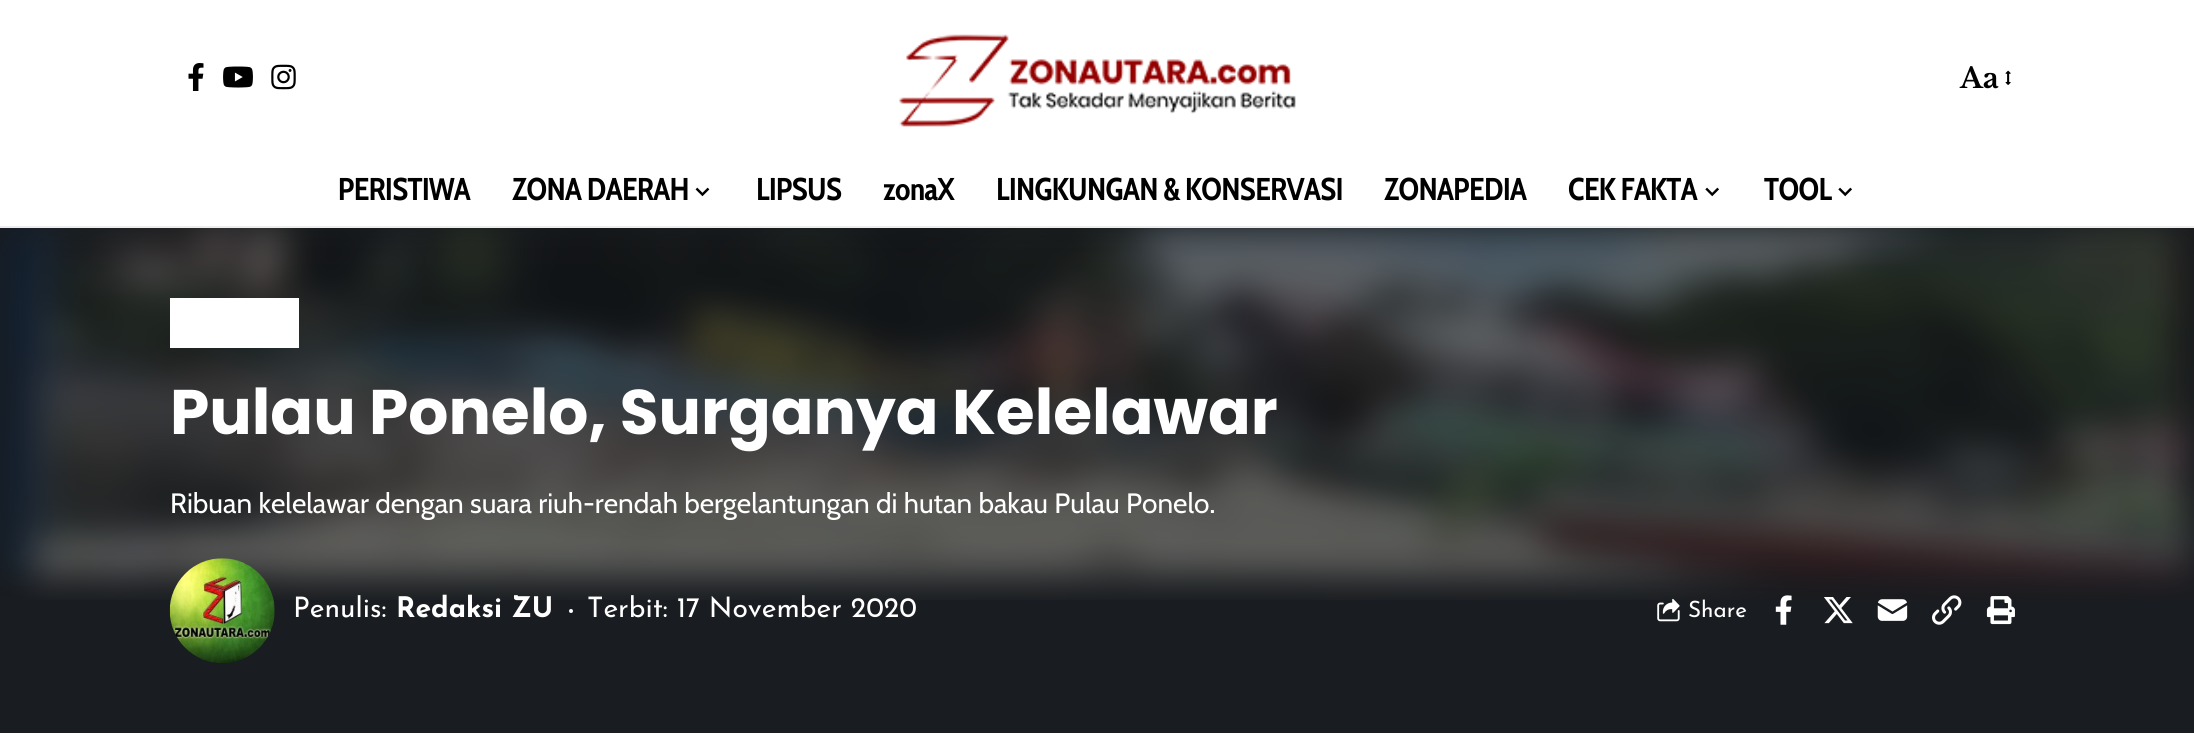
#include <cairo.h>
#include <math.h>
#include <stddef.h>

typedef struct { const char *family; double size; int italic, bold; unsigned color; } style_t;
static cairo_t *ctx;

static void ink(unsigned color) {
    cairo_set_source_rgb(ctx, (color >> 16) / 255.0, (color >> 8 & 255) / 255.0, (color & 255) / 255.0);
}

static void write(double x, double y, const char *s, const style_t *st) {
    cairo_select_font_face(ctx, st->family, st->italic ? CAIRO_FONT_SLANT_ITALIC : CAIRO_FONT_SLANT_NORMAL,
        st->bold ? CAIRO_FONT_WEIGHT_BOLD : CAIRO_FONT_WEIGHT_NORMAL);
    cairo_set_font_size(ctx, st->size);
    ink(st->color);
    cairo_move_to(ctx, x, y);
    cairo_show_text(ctx, s);
}

static void write_spaced(double x, double y, const char *s, double letter, double word) {
    cairo_move_to(ctx, x, y);
    while (*s) {
        char ch[5] = {0};
        int n = 0;
        do ch[n++] = *s++; while ((*s & 0xC0) == 0x80);
        cairo_show_text(ctx, ch);
        cairo_rel_move_to(ctx, letter + word * (*ch == ' '), 0);
    }
}

static void block(double x, double y, double w, double h, unsigned color) {
    ink(color);
    cairo_rectangle(ctx, x, y, w, h);
    cairo_fill(ctx);
}

static void paste(const char *path, double x, double y, double w, double h) {
    cairo_surface_t *image = cairo_image_surface_create_from_png(path);
    cairo_save(ctx);
    cairo_set_source_surface(ctx, image, x, y);
    cairo_rectangle(ctx, x, y, w, h);
    cairo_fill(ctx);
    cairo_restore(ctx);
    cairo_surface_destroy(image);
}

static const style_t s1 = {"Libre Baskerville", 28, 0, 1, 0x000000};
static const style_t s2 = {"Poppins", 63, 0, 1, 0xffffff};
static const style_t s3 = {"Cabin", 28, 0, 0, 0xffffff};
static const style_t s4 = {"Josefin Sans", 28.25, 0, 0, 0xffffff};
static const style_t s5 = {"Josefin Sans", 28.25, 0, 1, 0xffffff};
static const style_t s6 = {"Josefin Sans", 22.5, 0, 0, 0xffffff};

int main(void) {
    cairo_surface_t *surface = cairo_image_surface_create(CAIRO_FORMAT_RGB24, 2194, 739);
    ctx = cairo_create(surface);
    cairo_font_options_t *options = cairo_font_options_create();
    cairo_font_options_set_hint_metrics(options, CAIRO_HINT_METRICS_OFF);
    cairo_font_options_set_hint_style(options, CAIRO_HINT_STYLE_NONE);
    cairo_set_font_options(ctx, options);
    cairo_set_miter_limit(ctx, 4);
    ink(0xffffff);
    cairo_paint(ctx);
    paste("pic1.png", 188, 63, 16, 28);
    paste("pic2.png", 223, 66, 30, 22);
    paste("pic3.png", 271, 64, 25, 26);
    paste("pic4.png", 899, 34, 397, 93);
    write(1960, 88, "Aa", &s1);
    paste("pic5.png", 2005, 70, 6, 15);
    cairo_select_font_face(ctx, "Cabin Condensed", CAIRO_FONT_SLANT_NORMAL, CAIRO_FONT_WEIGHT_BOLD);
    cairo_set_font_size(ctx, 31.5);
    write_spaced(338, 200, "PERISTIWA", -0.6, 0);
    write_spaced(512, 200, "ZONA DAERAH", -0.6, 0);
    paste("pic6.png", 695, 187, 15, 10);
    write_spaced(756, 200, "LIPSUS", -0.6, 0);
    write_spaced(883, 200, "zonaX", -0.6, 0);
    write_spaced(996, 200, "LINGKUNGAN & KONSERVASI", -0.6, 0);
    write_spaced(1384, 200, "ZONAPEDIA", -0.6, 0);
    write_spaced(1568, 200, "CEK FAKTA", -0.6, 0);
    paste("pic7.png", 1705, 187, 14, 10);
    write_spaced(1764, 200, "TOOL", -0.6, 0);
    paste("pic7.png", 1838, 187, 14, 10);
    block(0, 226, 2194, 2, 0xededed);
    block(0, 228, 2194, 505, 0x191c20);
    paste("pic8.png", 0, 228, 2194, 372);
    block(170, 298, 129, 50, 0xffffff);
    write(170, 434, "Pulau Ponelo, Surganya Kelelawar", &s2);
    write(170, 513, "Ribuan kelelawar dengan suara riuh-rendah bergelantungan di hutan bakau Pulau Ponelo.", &s3);
    paste("pic9.png", 169, 558, 106, 105);
    write(293, 617, "Penulis:", &s4);
    write(396, 617, "Redaksi ZU", &s5);
    cairo_new_path(ctx);
    cairo_arc(ctx, 571, 611, 2, 0, 2 * M_PI);
    cairo_fill(ctx);
    write(587, 617, "Terbit: 17 November 2020", &s4);
    paste("pic10.png", 1657, 598, 23, 24);
    write(1688, 617, "Share", &s6);
    paste("pic11.png", 1775, 595, 17, 30);
    paste("pic12.png", 1824, 597, 29, 27);
    paste("pic13.png", 1877, 599, 31, 22);
    paste("pic14.png", 1932, 595, 30, 30);
    paste("pic15.png", 1986, 596, 29, 29);
    cairo_surface_write_to_png(surface, "screenshot.png");
    cairo_font_options_destroy(options);
    cairo_destroy(ctx);
    cairo_surface_destroy(surface);
    return 0;
}
